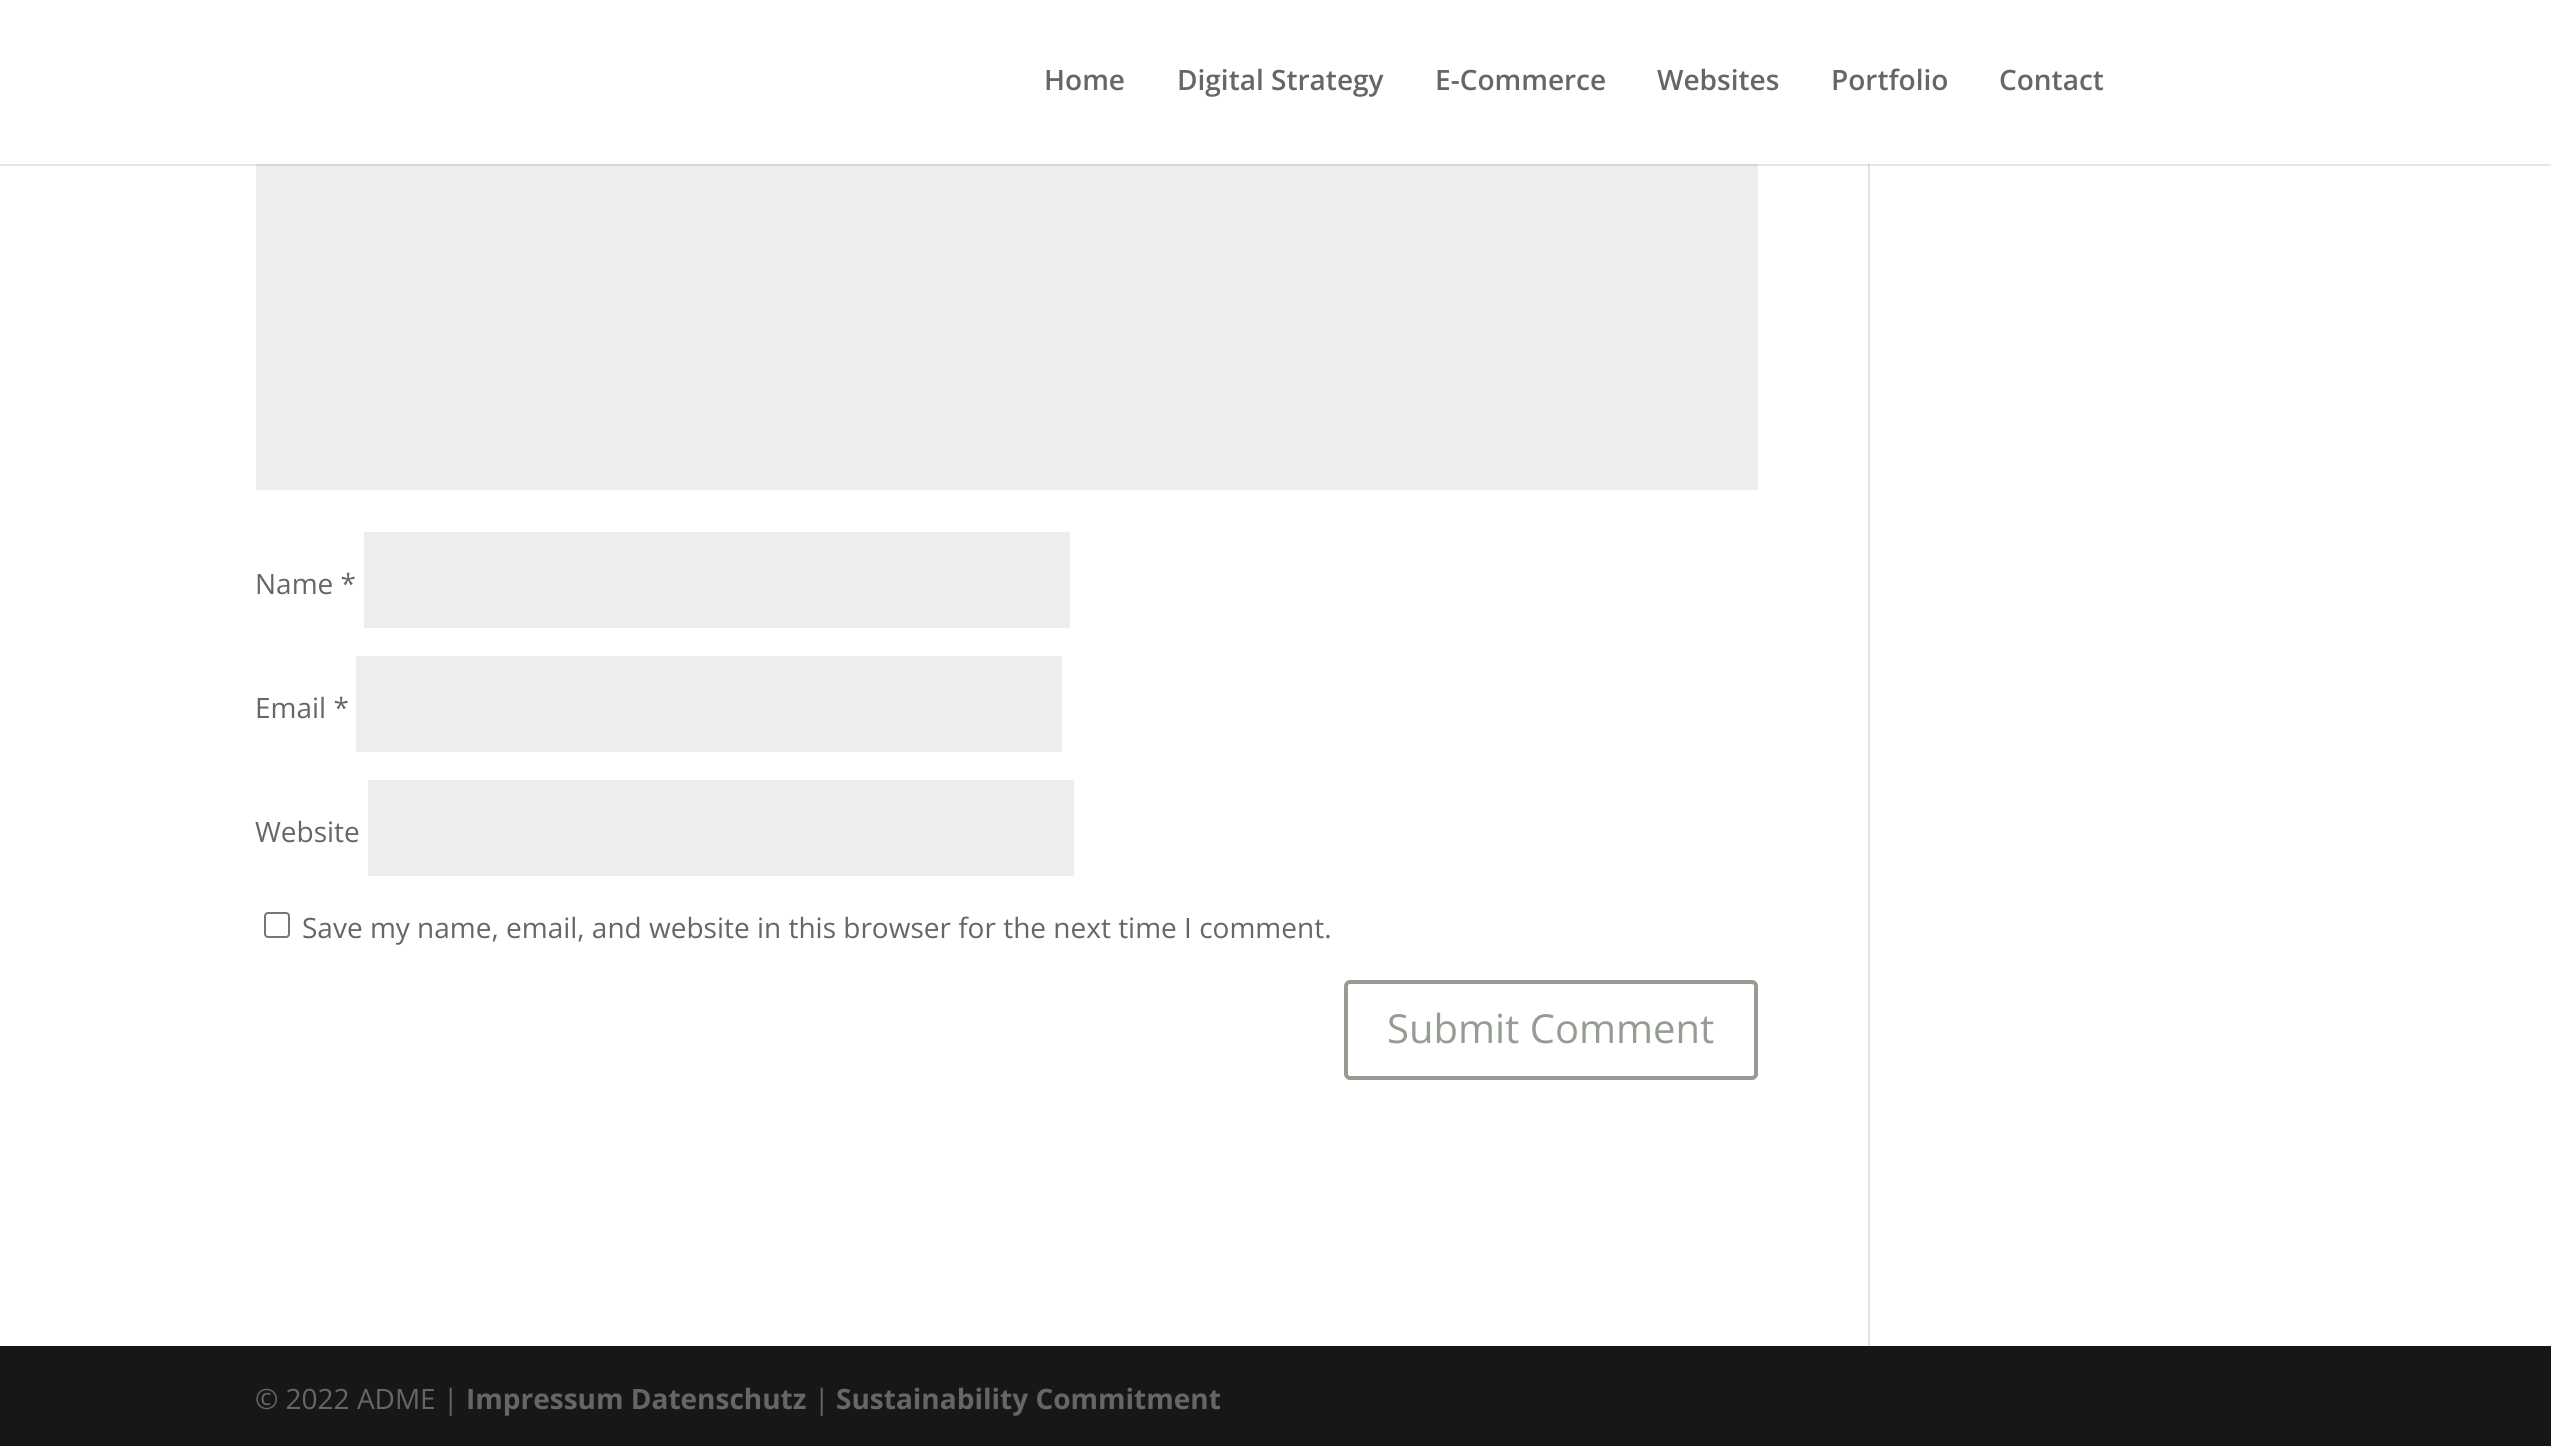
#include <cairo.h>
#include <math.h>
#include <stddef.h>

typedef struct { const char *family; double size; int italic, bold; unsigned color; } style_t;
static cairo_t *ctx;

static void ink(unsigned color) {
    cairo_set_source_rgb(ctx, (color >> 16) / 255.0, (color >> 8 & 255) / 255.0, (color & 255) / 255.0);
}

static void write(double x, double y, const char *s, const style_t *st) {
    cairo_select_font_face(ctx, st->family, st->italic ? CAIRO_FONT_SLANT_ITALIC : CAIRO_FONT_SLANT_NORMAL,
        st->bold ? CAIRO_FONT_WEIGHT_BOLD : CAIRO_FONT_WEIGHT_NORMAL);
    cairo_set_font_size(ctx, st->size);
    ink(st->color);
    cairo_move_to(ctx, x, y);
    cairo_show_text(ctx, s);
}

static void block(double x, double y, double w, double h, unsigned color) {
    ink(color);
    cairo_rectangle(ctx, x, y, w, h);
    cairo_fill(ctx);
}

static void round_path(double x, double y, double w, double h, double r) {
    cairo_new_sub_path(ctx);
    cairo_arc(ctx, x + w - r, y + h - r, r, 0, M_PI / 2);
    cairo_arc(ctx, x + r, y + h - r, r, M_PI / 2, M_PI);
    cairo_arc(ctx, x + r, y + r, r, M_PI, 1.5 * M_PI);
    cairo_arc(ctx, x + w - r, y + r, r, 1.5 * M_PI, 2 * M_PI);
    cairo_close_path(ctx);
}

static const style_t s1 = {"Open Sans SemiBold", 28, 0, 0, 0x666666};
static const style_t s2 = {"Open Sans", 28, 0, 0, 0x666666};
static const style_t s3 = {"Open Sans", 40, 0, 0, 0x959d93};
static const style_t s4 = {"Open Sans", 28, 0, 1, 0x666666};

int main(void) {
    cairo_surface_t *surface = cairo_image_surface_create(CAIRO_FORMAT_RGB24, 2551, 1446);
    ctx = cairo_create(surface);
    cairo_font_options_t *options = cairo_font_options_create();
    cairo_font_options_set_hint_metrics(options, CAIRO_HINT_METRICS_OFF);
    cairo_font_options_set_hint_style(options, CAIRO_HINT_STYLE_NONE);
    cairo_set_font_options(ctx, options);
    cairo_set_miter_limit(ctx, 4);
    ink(0xffffff);
    cairo_paint(ctx);
    block(0, 164, 2551, 2, 0xe6e6e6);
    write(1044, 90, "Home", &s1);
    write(1177, 90, "Digital Strategy", &s1);
    write(1435, 90, "E-Commerce", &s1);
    write(1657, 90, "Websites", &s1);
    write(1831, 90, "Portfolio", &s1);
    write(1999, 90, "Contact", &s1);
    block(256, 166, 1502, 324, 0xeeeeee);
    block(256, 164, 1502, 2, 0xd6d6d6);
    write(255, 594, "Name *", &s2);
    block(364, 532, 706, 96, 0xeeeeee);
    write(255, 718, "Email *", &s2);
    block(356, 656, 706, 96, 0xeeeeee);
    write(255, 842, "Website", &s2);
    block(368, 780, 706, 96, 0xeeeeee);
    round_path(265, 913, 24, 24, 3);
    ink(0x767676);
    cairo_stroke(ctx);
    write(302, 938, "Save my name, email, and website in this browser for the next time I comment.", &s2);
    round_path(1346, 982, 410, 96, 4);
    ink(0x959d93);
    cairo_set_line_width(ctx, 4);
    cairo_stroke(ctx);
    write(1387, 1043, "Submit Comment", &s3);
    block(1868, 166, 2, 1180, 0xe2e2e2);
    block(1868, 164, 2, 2, 0xcbcbcb);
    block(0, 1346, 2551, 100, 0x171717);
    write(255, 1409, "© 2022 ADME |", &s2);
    write(466, 1409, "Impressum Datenschutz", &s4);
    write(814, 1409, "|", &s2);
    write(836, 1409, "Sustainability Commitment", &s4);
    cairo_surface_write_to_png(surface, "screenshot.png");
    cairo_font_options_destroy(options);
    cairo_destroy(ctx);
    cairo_surface_destroy(surface);
    return 0;
}
